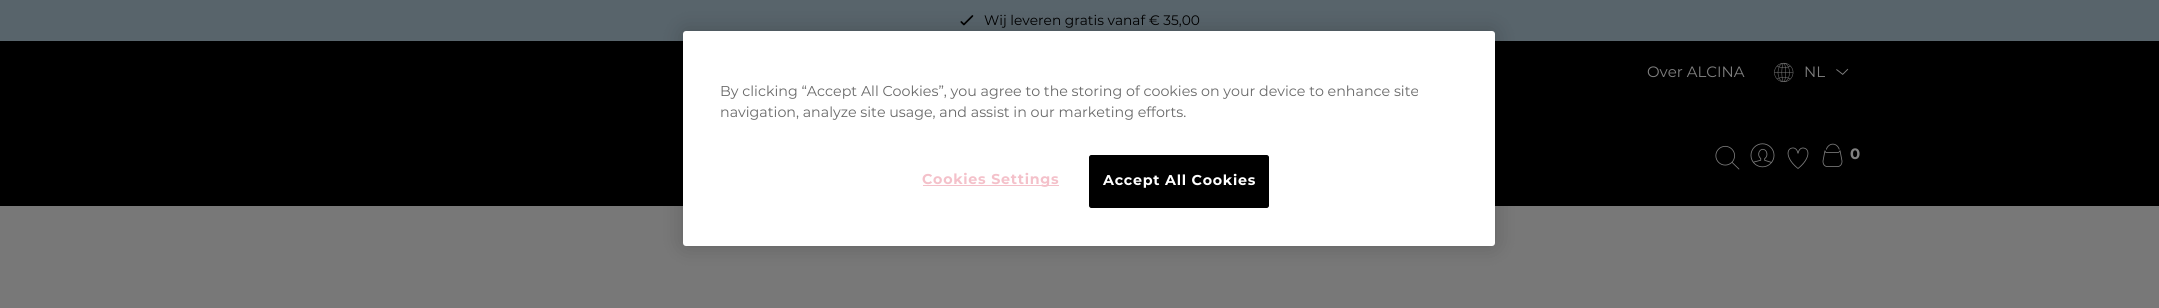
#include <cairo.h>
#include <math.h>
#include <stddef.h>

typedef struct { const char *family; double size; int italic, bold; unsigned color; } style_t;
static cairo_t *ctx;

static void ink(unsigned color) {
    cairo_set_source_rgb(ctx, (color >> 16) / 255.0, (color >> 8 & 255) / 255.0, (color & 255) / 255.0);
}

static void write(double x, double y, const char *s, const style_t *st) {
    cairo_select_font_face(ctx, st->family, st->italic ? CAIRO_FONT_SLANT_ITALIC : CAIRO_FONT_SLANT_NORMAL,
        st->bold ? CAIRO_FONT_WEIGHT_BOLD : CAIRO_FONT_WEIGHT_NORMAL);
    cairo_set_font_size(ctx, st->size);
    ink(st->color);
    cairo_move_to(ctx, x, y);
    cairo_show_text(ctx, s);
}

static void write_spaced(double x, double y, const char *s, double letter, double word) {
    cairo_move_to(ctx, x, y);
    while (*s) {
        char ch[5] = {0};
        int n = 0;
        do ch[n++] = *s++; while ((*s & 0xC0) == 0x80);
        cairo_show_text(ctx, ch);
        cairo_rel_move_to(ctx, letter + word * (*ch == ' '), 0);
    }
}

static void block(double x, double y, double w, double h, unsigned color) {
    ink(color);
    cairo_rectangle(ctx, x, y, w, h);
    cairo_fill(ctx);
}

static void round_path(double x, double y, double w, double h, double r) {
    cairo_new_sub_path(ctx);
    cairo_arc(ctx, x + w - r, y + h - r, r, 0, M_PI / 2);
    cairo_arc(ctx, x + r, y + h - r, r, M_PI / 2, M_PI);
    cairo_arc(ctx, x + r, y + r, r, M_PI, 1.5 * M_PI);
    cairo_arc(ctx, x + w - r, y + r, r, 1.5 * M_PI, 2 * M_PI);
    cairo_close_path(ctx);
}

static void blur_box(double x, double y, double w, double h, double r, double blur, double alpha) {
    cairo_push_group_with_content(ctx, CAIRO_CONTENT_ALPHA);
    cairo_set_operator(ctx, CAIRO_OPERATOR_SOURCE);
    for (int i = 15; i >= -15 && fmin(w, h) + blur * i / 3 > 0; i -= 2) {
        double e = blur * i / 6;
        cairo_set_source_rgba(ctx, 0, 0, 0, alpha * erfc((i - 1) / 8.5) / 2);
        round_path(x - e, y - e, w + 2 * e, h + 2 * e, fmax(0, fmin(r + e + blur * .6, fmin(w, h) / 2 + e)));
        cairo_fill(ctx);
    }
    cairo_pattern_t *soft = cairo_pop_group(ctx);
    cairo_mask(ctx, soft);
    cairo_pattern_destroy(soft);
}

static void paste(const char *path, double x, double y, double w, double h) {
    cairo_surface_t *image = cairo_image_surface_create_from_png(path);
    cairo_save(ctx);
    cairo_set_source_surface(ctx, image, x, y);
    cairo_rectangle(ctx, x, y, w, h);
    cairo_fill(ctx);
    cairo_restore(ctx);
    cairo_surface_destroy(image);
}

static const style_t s1 = {"Montserrat", 13.75, 0, 0, 0x000000};
static const style_t s2 = {"Montserrat", 15, 0, 0, 0x808080};
static const style_t s3 = {"Montserrat", 15, 0, 1, 0x808080};
static const style_t s4 = {"Montserrat", 14.25, 0, 0, 0x696969};

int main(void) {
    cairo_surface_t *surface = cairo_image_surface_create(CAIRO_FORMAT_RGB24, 2159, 308);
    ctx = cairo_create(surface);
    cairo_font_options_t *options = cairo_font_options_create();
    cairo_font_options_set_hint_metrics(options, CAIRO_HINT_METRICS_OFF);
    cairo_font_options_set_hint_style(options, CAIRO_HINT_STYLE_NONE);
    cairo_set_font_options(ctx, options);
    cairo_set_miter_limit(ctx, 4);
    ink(0x787878);
    cairo_paint(ctx);
    block(0, 0, 2159, 41, 0x58646b);
    paste("pic1.png", 960, 15, 14, 11);
    write(984, 25, "Wij leveren gratis vanaf € 35,00", &s1);
    block(0, 41, 2159, 165, 0x000000);
    write(1647, 77, "Over ALCINA", &s2);
    paste("pic2.png", 1774, 62, 20, 20);
    write(1804, 77, "NL", &s2);
    paste("pic3.png", 1836, 68, 13, 7);
    paste("pic4.png", 1750, 143, 25, 25);
    paste("pic5.png", 1787, 147, 22, 22);
    paste("pic6.png", 1822, 143, 21, 24);
    write(1850, 159, "0", &s3);
    paste("pic7.png", 1715, 145, 25, 25);
    ink(0x000000);
    blur_box(683, 31, 812, 215, 3, 11, 0.2);
    ink(0xffffff);
    round_path(683, 31, 812, 215, 3);
    cairo_fill(ctx);
    write(720, 96, "By clicking “Accept All Cookies”, you agree to the storing of cookies on your device to enhance site", &s4);
    write(720, 117, "navigation, analyze site usage, and assist in our marketing efforts.", &s4);
    block(923, 185, 136, 1, 0xf4c1ca);
    cairo_select_font_face(ctx, "Montserrat", CAIRO_FONT_SLANT_NORMAL, CAIRO_FONT_WEIGHT_BOLD);
    write_spaced(922, 184, "Cookies Settings", 0.75, 0);
    ink(0x000000);
    round_path(1089.5, 155.5, 179, 52, 2);
    cairo_fill_preserve(ctx);
    cairo_set_line_width(ctx, 1);
    cairo_stroke(ctx);
    ink(0xffffff);
    write_spaced(1103, 185, "Accept All Cookies", 0.75, 0);
    cairo_surface_write_to_png(surface, "screenshot.png");
    cairo_font_options_destroy(options);
    cairo_destroy(ctx);
    cairo_surface_destroy(surface);
    return 0;
}
